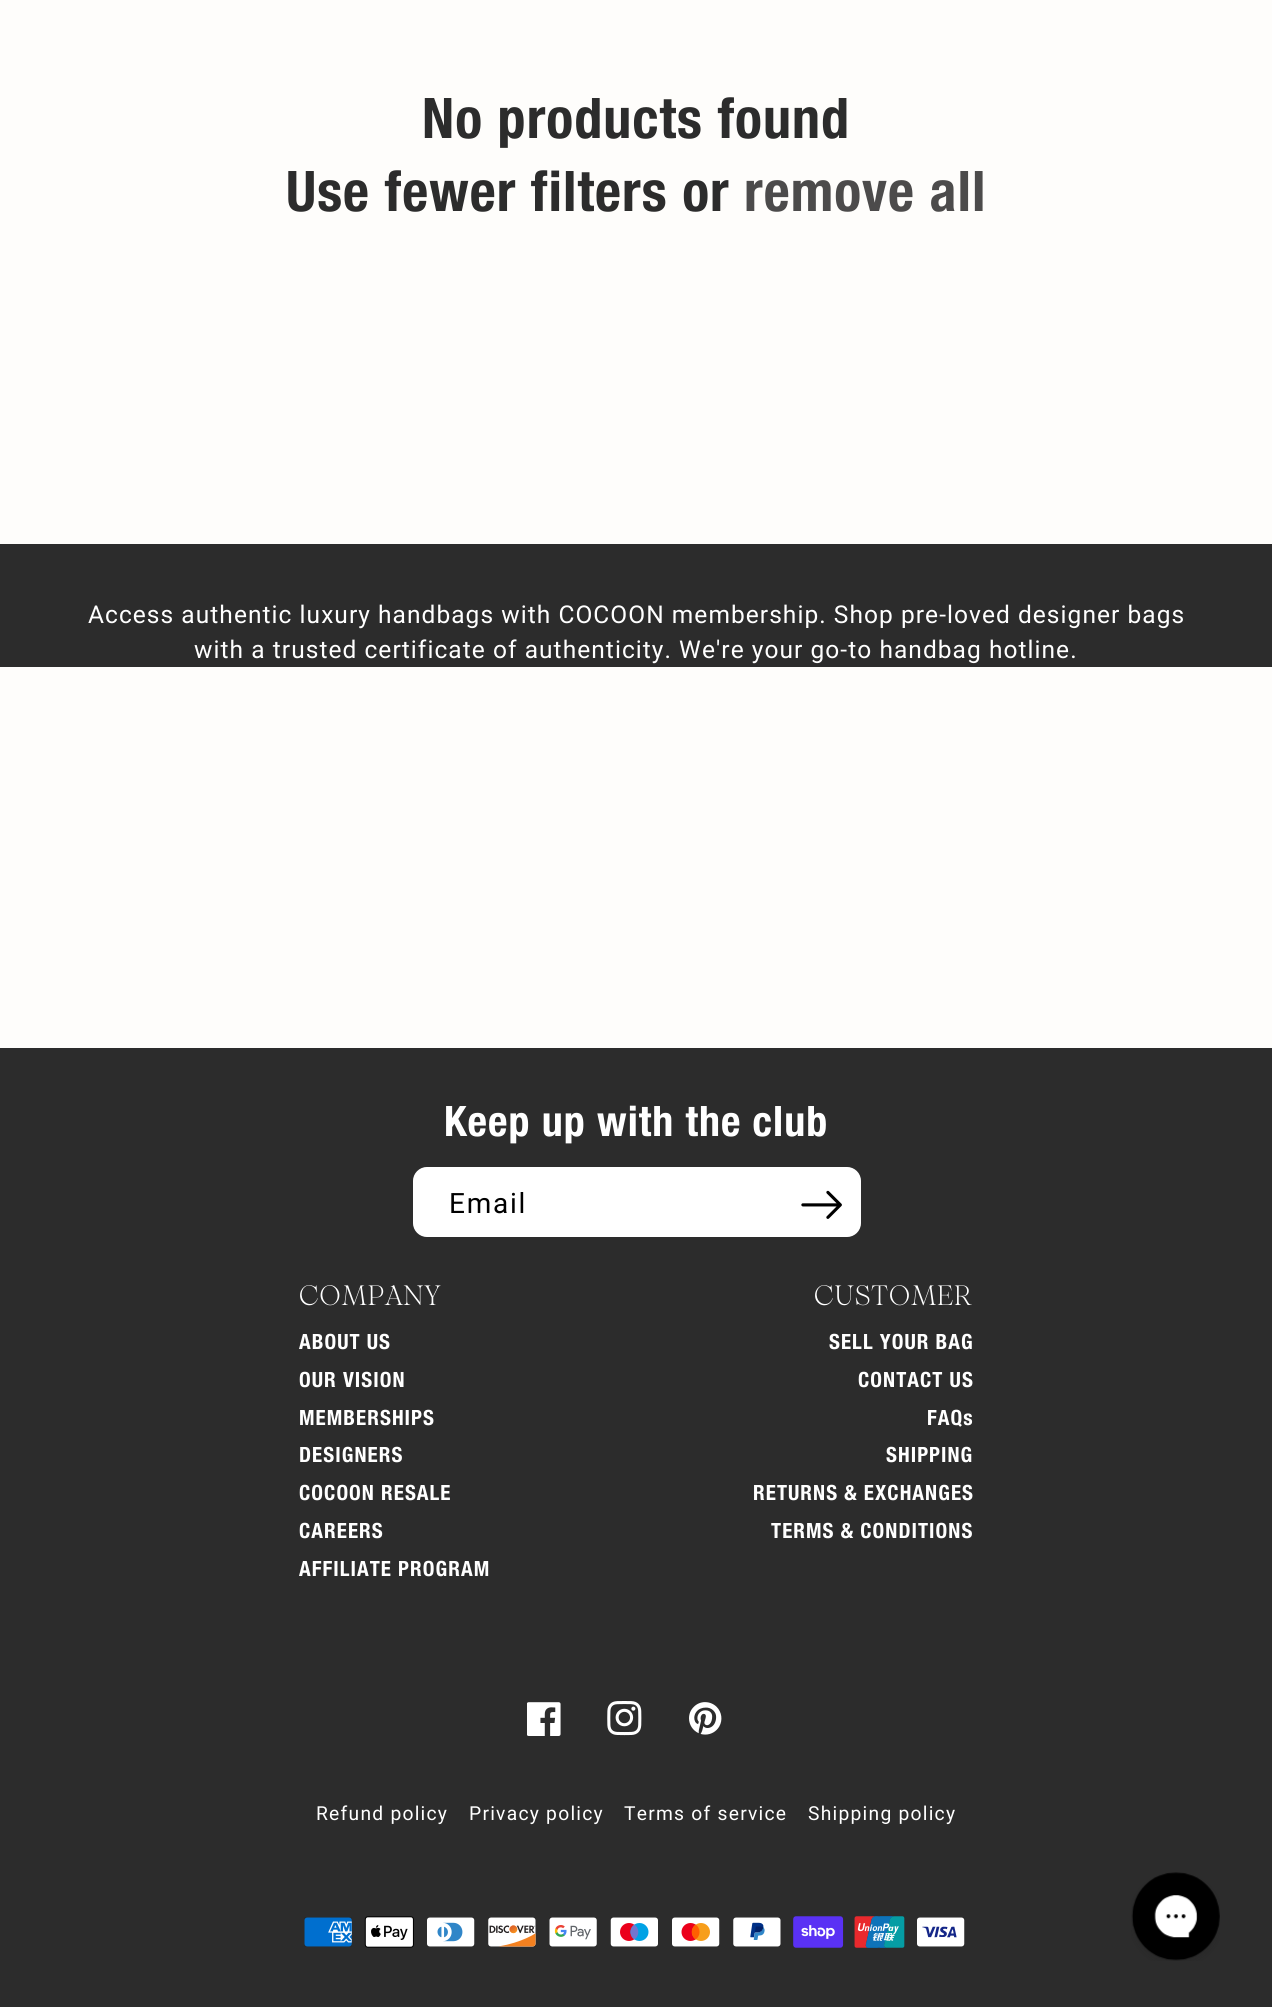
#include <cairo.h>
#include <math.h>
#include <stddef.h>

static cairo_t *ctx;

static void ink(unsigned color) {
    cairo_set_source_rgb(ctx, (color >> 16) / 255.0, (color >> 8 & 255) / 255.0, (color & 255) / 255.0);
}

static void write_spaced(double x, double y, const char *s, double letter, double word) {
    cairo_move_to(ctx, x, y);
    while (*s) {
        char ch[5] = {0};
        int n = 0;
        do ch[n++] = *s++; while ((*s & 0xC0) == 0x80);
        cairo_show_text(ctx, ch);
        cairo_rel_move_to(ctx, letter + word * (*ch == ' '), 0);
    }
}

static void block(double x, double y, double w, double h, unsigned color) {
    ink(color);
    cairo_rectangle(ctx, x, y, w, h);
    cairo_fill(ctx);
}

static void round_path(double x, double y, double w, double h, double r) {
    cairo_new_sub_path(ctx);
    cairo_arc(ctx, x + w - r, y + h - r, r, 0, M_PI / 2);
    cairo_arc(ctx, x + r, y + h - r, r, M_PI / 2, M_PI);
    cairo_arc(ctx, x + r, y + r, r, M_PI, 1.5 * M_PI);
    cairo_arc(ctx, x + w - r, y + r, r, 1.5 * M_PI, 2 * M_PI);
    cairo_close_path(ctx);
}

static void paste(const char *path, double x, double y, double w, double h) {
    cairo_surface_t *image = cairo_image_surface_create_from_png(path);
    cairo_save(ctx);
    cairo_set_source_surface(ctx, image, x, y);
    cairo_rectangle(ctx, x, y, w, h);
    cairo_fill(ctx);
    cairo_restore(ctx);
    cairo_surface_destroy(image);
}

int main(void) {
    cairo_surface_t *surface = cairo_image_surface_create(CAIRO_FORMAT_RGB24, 1272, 2007);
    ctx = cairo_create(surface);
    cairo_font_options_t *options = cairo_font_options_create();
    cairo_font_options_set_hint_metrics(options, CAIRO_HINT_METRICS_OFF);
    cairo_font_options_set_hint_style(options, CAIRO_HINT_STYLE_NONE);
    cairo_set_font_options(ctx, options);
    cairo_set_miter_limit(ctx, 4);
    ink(0xfefdfb);
    cairo_paint(ctx);
    cairo_select_font_face(ctx, "Helvetica Neue", CAIRO_FONT_SLANT_NORMAL, CAIRO_FONT_WEIGHT_BOLD);
    cairo_set_font_size(ctx, 56);
    ink(0x2c2c2c);
    write_spaced(422, 138, "No products found", 1.05, 0);
    write_spaced(286, 211, "Use fewer filters or", 1.05, 0);
    ink(0x4c4b4b);
    write_spaced(744, 211, "remove all", 1.05, 0);
    block(0, 544, 1272, 123, 0x2c2c2c);
    cairo_select_font_face(ctx, "Roboto", CAIRO_FONT_SLANT_NORMAL, CAIRO_FONT_WEIGHT_NORMAL);
    cairo_set_font_size(ctx, 24.5);
    ink(0xffffff);
    write_spaced(88, 623, "Access authentic luxury handbags with COCOON membership. Shop pre-loved designer bags", 1.05, 0);
    write_spaced(194, 658, "with a trusted certificate of authenticity. We're your go-to handbag hotline.", 1.05, 0);
    block(0, 1048, 1272, 959, 0x2c2c2c);
    cairo_select_font_face(ctx, "Helvetica Neue", CAIRO_FONT_SLANT_NORMAL, CAIRO_FONT_WEIGHT_BOLD);
    cairo_set_font_size(ctx, 42);
    ink(0xffffff);
    write_spaced(444, 1136, "Keep up with the club", 1.05, 0);
    round_path(413, 1167, 448, 70, 14);
    cairo_fill(ctx);
    paste("pic1.png", 801, 1190, 41, 29);
    round_path(414, 1168, 446, 68, 15);
    cairo_set_source_rgba(ctx, 1, 1, 1, 0.55);
    cairo_stroke(ctx);
    cairo_select_font_face(ctx, "Roboto", CAIRO_FONT_SLANT_NORMAL, CAIRO_FONT_WEIGHT_NORMAL);
    cairo_set_font_size(ctx, 28);
    ink(0x000000);
    write_spaced(449, 1213, "Email", 1.75, 0);
    cairo_select_font_face(ctx, "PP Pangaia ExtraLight", CAIRO_FONT_SLANT_NORMAL, CAIRO_FONT_WEIGHT_NORMAL);
    ink(0xffffff);
    write_spaced(299, 1305, "COMPANY", 1.05, 0);
    cairo_select_font_face(ctx, "Helvetica Neue", CAIRO_FONT_SLANT_NORMAL, CAIRO_FONT_WEIGHT_BOLD);
    cairo_set_font_size(ctx, 21);
    write_spaced(299, 1349, "ABOUT US", 1.05, 0);
    write_spaced(299, 1387, "OUR VISION", 1.05, 0);
    write_spaced(299, 1425, "MEMBERSHIPS", 1.05, 0);
    write_spaced(299, 1462, "DESIGNERS", 1.05, 0);
    write_spaced(299, 1500, "COCOON RESALE", 1.05, 0);
    write_spaced(299, 1538, "CAREERS", 1.05, 0);
    write_spaced(299, 1576, "AFFILIATE PROGRAM", 1.05, 0);
    cairo_select_font_face(ctx, "PP Pangaia ExtraLight", CAIRO_FONT_SLANT_NORMAL, CAIRO_FONT_WEIGHT_NORMAL);
    cairo_set_font_size(ctx, 28);
    write_spaced(814, 1305, "CUSTOMER", 1.05, 0);
    cairo_select_font_face(ctx, "Helvetica Neue", CAIRO_FONT_SLANT_NORMAL, CAIRO_FONT_WEIGHT_BOLD);
    cairo_set_font_size(ctx, 21);
    write_spaced(829, 1349, "SELL YOUR BAG", 1.05, 0);
    write_spaced(858, 1387, "CONTACT US", 1.05, 0);
    write_spaced(927, 1425, "FAQs", 1.05, 0);
    write_spaced(886, 1462, "SHIPPING", 1.05, 0);
    write_spaced(753, 1500, "RETURNS & EXCHANGES", 1.05, 0);
    write_spaced(771, 1538, "TERMS & CONDITIONS", 1.05, 0);
    paste("pic2.png", 527, 1702, 34, 34);
    paste("pic3.png", 607, 1701, 35, 35);
    paste("pic4.png", 689, 1702, 33, 33);
    cairo_select_font_face(ctx, "Roboto", CAIRO_FONT_SLANT_NORMAL, CAIRO_FONT_WEIGHT_NORMAL);
    cairo_set_font_size(ctx, 19.25);
    write_spaced(316, 1820, "Refund policy", 1.25, 0);
    write_spaced(469, 1820, "Privacy policy", 1.25, 0);
    write_spaced(624, 1820, "Terms of service", 1.25, 0);
    write_spaced(808, 1820, "Shipping policy", 1.25, 0);
    paste("pic5.png", 304, 1917, 48, 30);
    paste("pic6.png", 364, 1916, 50, 32);
    paste("pic7.png", 427, 1917, 48, 30);
    paste("pic8.png", 488, 1917, 48, 30);
    paste("pic9.png", 549, 1917, 48, 30);
    paste("pic10.png", 610, 1917, 48, 30);
    paste("pic11.png", 672, 1917, 48, 30);
    paste("pic12.png", 733, 1917, 48, 30);
    paste("pic13.png", 793, 1916, 51, 32);
    paste("pic14.png", 854, 1916, 51, 32);
    paste("pic15.png", 917, 1917, 48, 30);
    paste("pic16.png", 1131, 1872, 89, 89);
    cairo_surface_write_to_png(surface, "screenshot.png");
    cairo_font_options_destroy(options);
    cairo_destroy(ctx);
    cairo_surface_destroy(surface);
    return 0;
}
